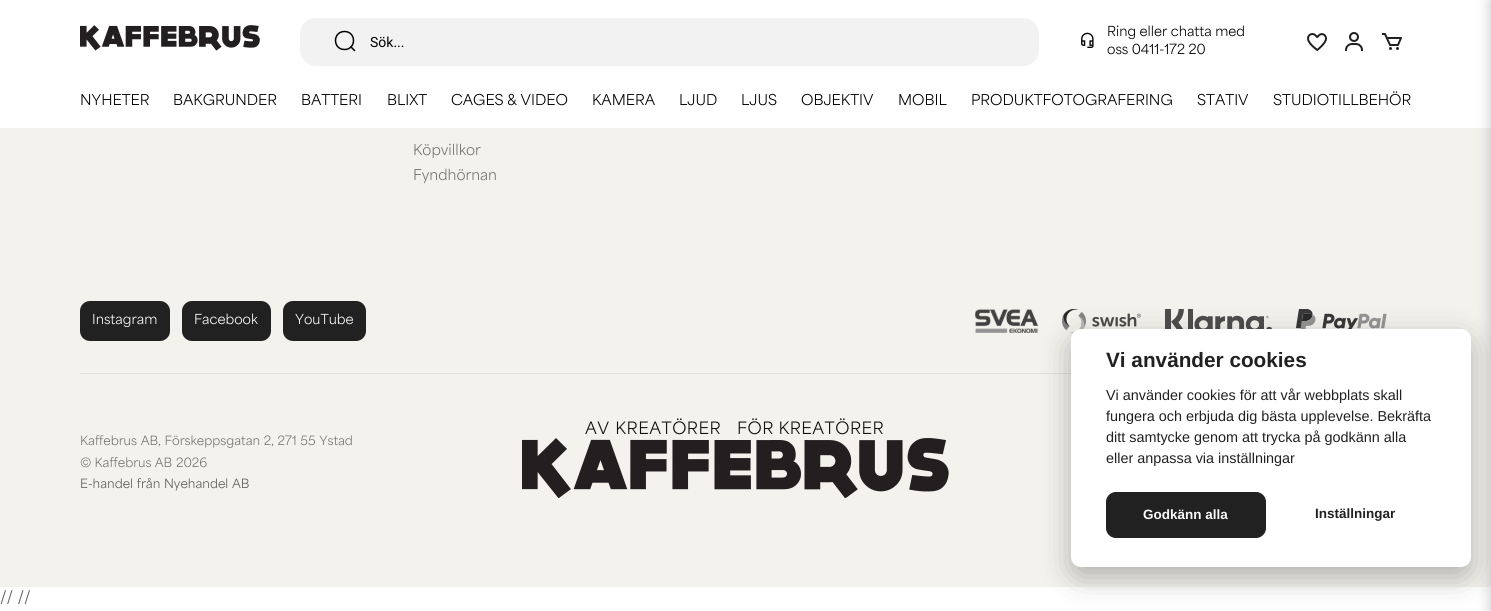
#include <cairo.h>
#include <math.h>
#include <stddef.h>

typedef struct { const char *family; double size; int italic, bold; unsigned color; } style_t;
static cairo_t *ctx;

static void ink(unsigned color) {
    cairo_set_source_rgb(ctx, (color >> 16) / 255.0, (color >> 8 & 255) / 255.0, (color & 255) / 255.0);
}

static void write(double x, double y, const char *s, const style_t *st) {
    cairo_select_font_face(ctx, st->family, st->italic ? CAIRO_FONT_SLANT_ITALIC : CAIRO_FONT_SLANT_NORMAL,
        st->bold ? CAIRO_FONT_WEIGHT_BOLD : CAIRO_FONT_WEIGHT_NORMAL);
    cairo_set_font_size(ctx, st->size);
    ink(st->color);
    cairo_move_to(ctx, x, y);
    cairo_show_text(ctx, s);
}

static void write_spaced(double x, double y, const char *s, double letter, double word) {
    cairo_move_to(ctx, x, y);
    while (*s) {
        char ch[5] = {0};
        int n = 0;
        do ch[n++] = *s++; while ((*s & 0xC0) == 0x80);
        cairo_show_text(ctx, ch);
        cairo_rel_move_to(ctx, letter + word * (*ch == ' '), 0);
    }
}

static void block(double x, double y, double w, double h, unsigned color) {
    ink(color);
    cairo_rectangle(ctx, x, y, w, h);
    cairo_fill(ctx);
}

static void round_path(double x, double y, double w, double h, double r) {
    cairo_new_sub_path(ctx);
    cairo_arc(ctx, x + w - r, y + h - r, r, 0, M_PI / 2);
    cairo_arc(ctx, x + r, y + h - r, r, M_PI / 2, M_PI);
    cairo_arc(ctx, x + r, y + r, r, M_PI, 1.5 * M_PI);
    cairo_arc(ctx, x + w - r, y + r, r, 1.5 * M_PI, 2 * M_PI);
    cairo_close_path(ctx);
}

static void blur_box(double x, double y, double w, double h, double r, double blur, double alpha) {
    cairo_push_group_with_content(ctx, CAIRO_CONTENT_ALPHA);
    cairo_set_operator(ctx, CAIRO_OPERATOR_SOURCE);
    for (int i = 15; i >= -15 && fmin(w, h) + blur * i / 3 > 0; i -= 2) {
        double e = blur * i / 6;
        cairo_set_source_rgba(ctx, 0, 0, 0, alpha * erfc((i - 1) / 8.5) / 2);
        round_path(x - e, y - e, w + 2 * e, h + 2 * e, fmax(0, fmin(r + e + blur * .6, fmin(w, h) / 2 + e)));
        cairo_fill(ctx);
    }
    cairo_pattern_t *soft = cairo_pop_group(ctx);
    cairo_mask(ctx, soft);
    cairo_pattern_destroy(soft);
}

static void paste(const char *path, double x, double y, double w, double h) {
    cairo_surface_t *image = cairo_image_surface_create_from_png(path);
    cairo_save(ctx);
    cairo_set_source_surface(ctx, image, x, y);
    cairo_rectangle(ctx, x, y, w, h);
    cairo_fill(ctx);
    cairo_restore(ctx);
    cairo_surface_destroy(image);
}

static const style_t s1 = {"Roboto", 14, 0, 0, 0x000000};
static const style_t s2 = {"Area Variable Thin", 13, 0, 0, 0x000000};
static const style_t s3 = {"Area Variable Thin", 14, 0, 0, 0x000000};
static const style_t s4 = {"Area Variable Thin", 14, 0, 0, 0x757575};
static const style_t s5 = {"Area Variable Thin", 13, 0, 0, 0xffffff};
static const style_t s6 = {"Area Variable Thin", 12, 0, 0, 0x757575};
static const style_t s7 = {"Liberation Sans", 20.75, 0, 1, 0x212121};
static const style_t s8 = {"Liberation Sans", 14.4, 0, 0, 0x212121};
static const style_t s9 = {"Liberation Sans", 13.5, 0, 1, 0xf9f9f9};
static const style_t s10 = {"Liberation Sans", 13.5, 0, 1, 0x212121};
static const style_t s11 = {"Area Variable Thin", 16, 0, 0, 0x5d5d5d};

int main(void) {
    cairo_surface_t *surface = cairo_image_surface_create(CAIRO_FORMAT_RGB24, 1491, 611);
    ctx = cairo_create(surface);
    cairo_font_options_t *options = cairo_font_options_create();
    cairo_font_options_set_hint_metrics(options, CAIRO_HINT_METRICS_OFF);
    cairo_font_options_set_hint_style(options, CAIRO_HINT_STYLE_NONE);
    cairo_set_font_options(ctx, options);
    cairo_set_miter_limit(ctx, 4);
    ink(0xffffff);
    cairo_paint(ctx);
    paste("pic1.png", 80, 25, 180, 26);
    ink(0xf2f2f2);
    round_path(300, 18, 739, 48, 16);
    cairo_fill(ctx);
    cairo_new_path(ctx);
    cairo_move_to(ctx, 344.5, 49.5);
    cairo_curve_to(ctx, 356.5, 49.5, 356.5, 31.5, 344.5, 31.5);
    cairo_curve_to(ctx, 332.5, 31.5, 332.5, 49.5, 344.5, 49.5);
    cairo_close_path(ctx);
    ink(0x000000);
    cairo_set_line_width(ctx, 1.5);
    cairo_stroke(ctx);
    cairo_new_path(ctx);
    cairo_move_to(ctx, 351, 47);
    cairo_line_to(ctx, 354.5, 50.5);
    cairo_set_line_cap(ctx, CAIRO_LINE_CAP_ROUND);
    cairo_stroke(ctx);
    write(370, 47, "Sök...", &s1);
    paste("pic2.png", 1081, 32, 13, 16);
    write(1107, 36, "Ring eller chatta med", &s2);
    write(1107, 54, "oss 0411-172 20", &s2);
    paste("pic3.png", 1307, 33, 20, 18);
    paste("pic4.png", 1345, 32, 18, 19);
    paste("pic5.png", 1382, 33, 20, 17);
    write(80, 105, "NYHETER", &s3);
    write(173, 105, "BAKGRUNDER", &s3);
    write(301, 105, "BATTERI", &s3);
    write(387, 105, "BLIXT", &s3);
    write(451, 105, "CAGES & VIDEO", &s3);
    write(592, 105, "KAMERA", &s3);
    write(679, 105, "LJUD", &s3);
    write(741, 105, "LJUS", &s3);
    write(801, 105, "OBJEKTIV", &s3);
    write(898, 105, "MOBIL", &s3);
    write(971, 105, "PRODUKTFOTOGRAFERING", &s3);
    write(1197, 105, "STATIV", &s3);
    write(1273, 105, "STUDIOTILLBEHÖR", &s3);
    block(0, 128, 1491, 459, 0xf4f2ed);
    ink(0x3c4257);
    blur_box(1491, 1, 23, 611, 0, 7.5, 0.3);
    write(413, 155, "Köpvillkor", &s4);
    write(413, 180, "Fyndhörnan", &s4);
    block(80, 373, 991, 1, 0xe1e1e1);
    ink(0x212121);
    round_path(80, 301, 90, 40, 10);
    cairo_fill(ctx);
    write(92, 324, "Instagram", &s5);
    ink(0x212121);
    round_path(182, 301, 89, 40, 10);
    cairo_fill(ctx);
    write(194, 324, "Facebook", &s5);
    ink(0x212121);
    round_path(283, 301, 83, 40, 10);
    cairo_fill(ctx);
    write(295, 324, "YouTube", &s5);
    paste("pic6.png", 975, 309, 63, 24);
    paste("pic7.png", 1062, 309, 79, 24);
    paste("pic8.png", 1165, 309, 107, 20);
    paste("pic9.png", 1296, 309, 91, 20);
    cairo_set_font_size(ctx, 16);
    ink(0x101010);
    write_spaced(585, 434, "AV KREATÖRER", 0.5, 1);
    write_spaced(737, 434, "FÖR KREATÖRER", 0.5, 0);
    paste("pic10.png", 522, 438, 427, 60);
    cairo_set_font_size(ctx, 12);
    ink(0x757575);
    write_spaced(80, 445, "Kaffebrus AB, Förskeppsgatan 2, 271 55 Ystad", 0, 0.5);
    write(80, 467, "© Kaffebrus AB", &s6);
    write(176, 467, "2026", &s6);
    ink(0x5d5d5d);
    write_spaced(80, 488, "E-handel från Nyehandel AB", 0, 0.5);
    ink(0x020203);
    blur_box(1071, 339, 400, 238, 10, 15, 0.28);
    ink(0xffffff);
    round_path(1071, 329, 400, 238, 10);
    cairo_fill(ctx);
    write(1106, 367, "Vi använder cookies", &s7);
    write(1106, 400, "Vi använder cookies för att vår webbplats skall", &s8);
    write(1106, 421, "fungera och erbjuda dig bästa upplevelse. Bekräfta", &s8);
    write(1106, 442, "ditt samtycke genom att trycka på godkänn alla", &s8);
    write(1106, 463, "eller anpassa via inställningar", &s8);
    round_path(1106.5, 492.5, 159, 45, 9.5);
    cairo_fill_preserve(ctx);
    cairo_set_line_width(ctx, 1);
    cairo_set_line_cap(ctx, CAIRO_LINE_CAP_BUTT);
    cairo_stroke(ctx);
    write(1143, 519, "Godkänn alla", &s9);
    write(1315, 518, "Inställningar", &s10);
    write(0, 603, "// //", &s11);
    cairo_surface_write_to_png(surface, "screenshot.png");
    cairo_font_options_destroy(options);
    cairo_destroy(ctx);
    cairo_surface_destroy(surface);
    return 0;
}
